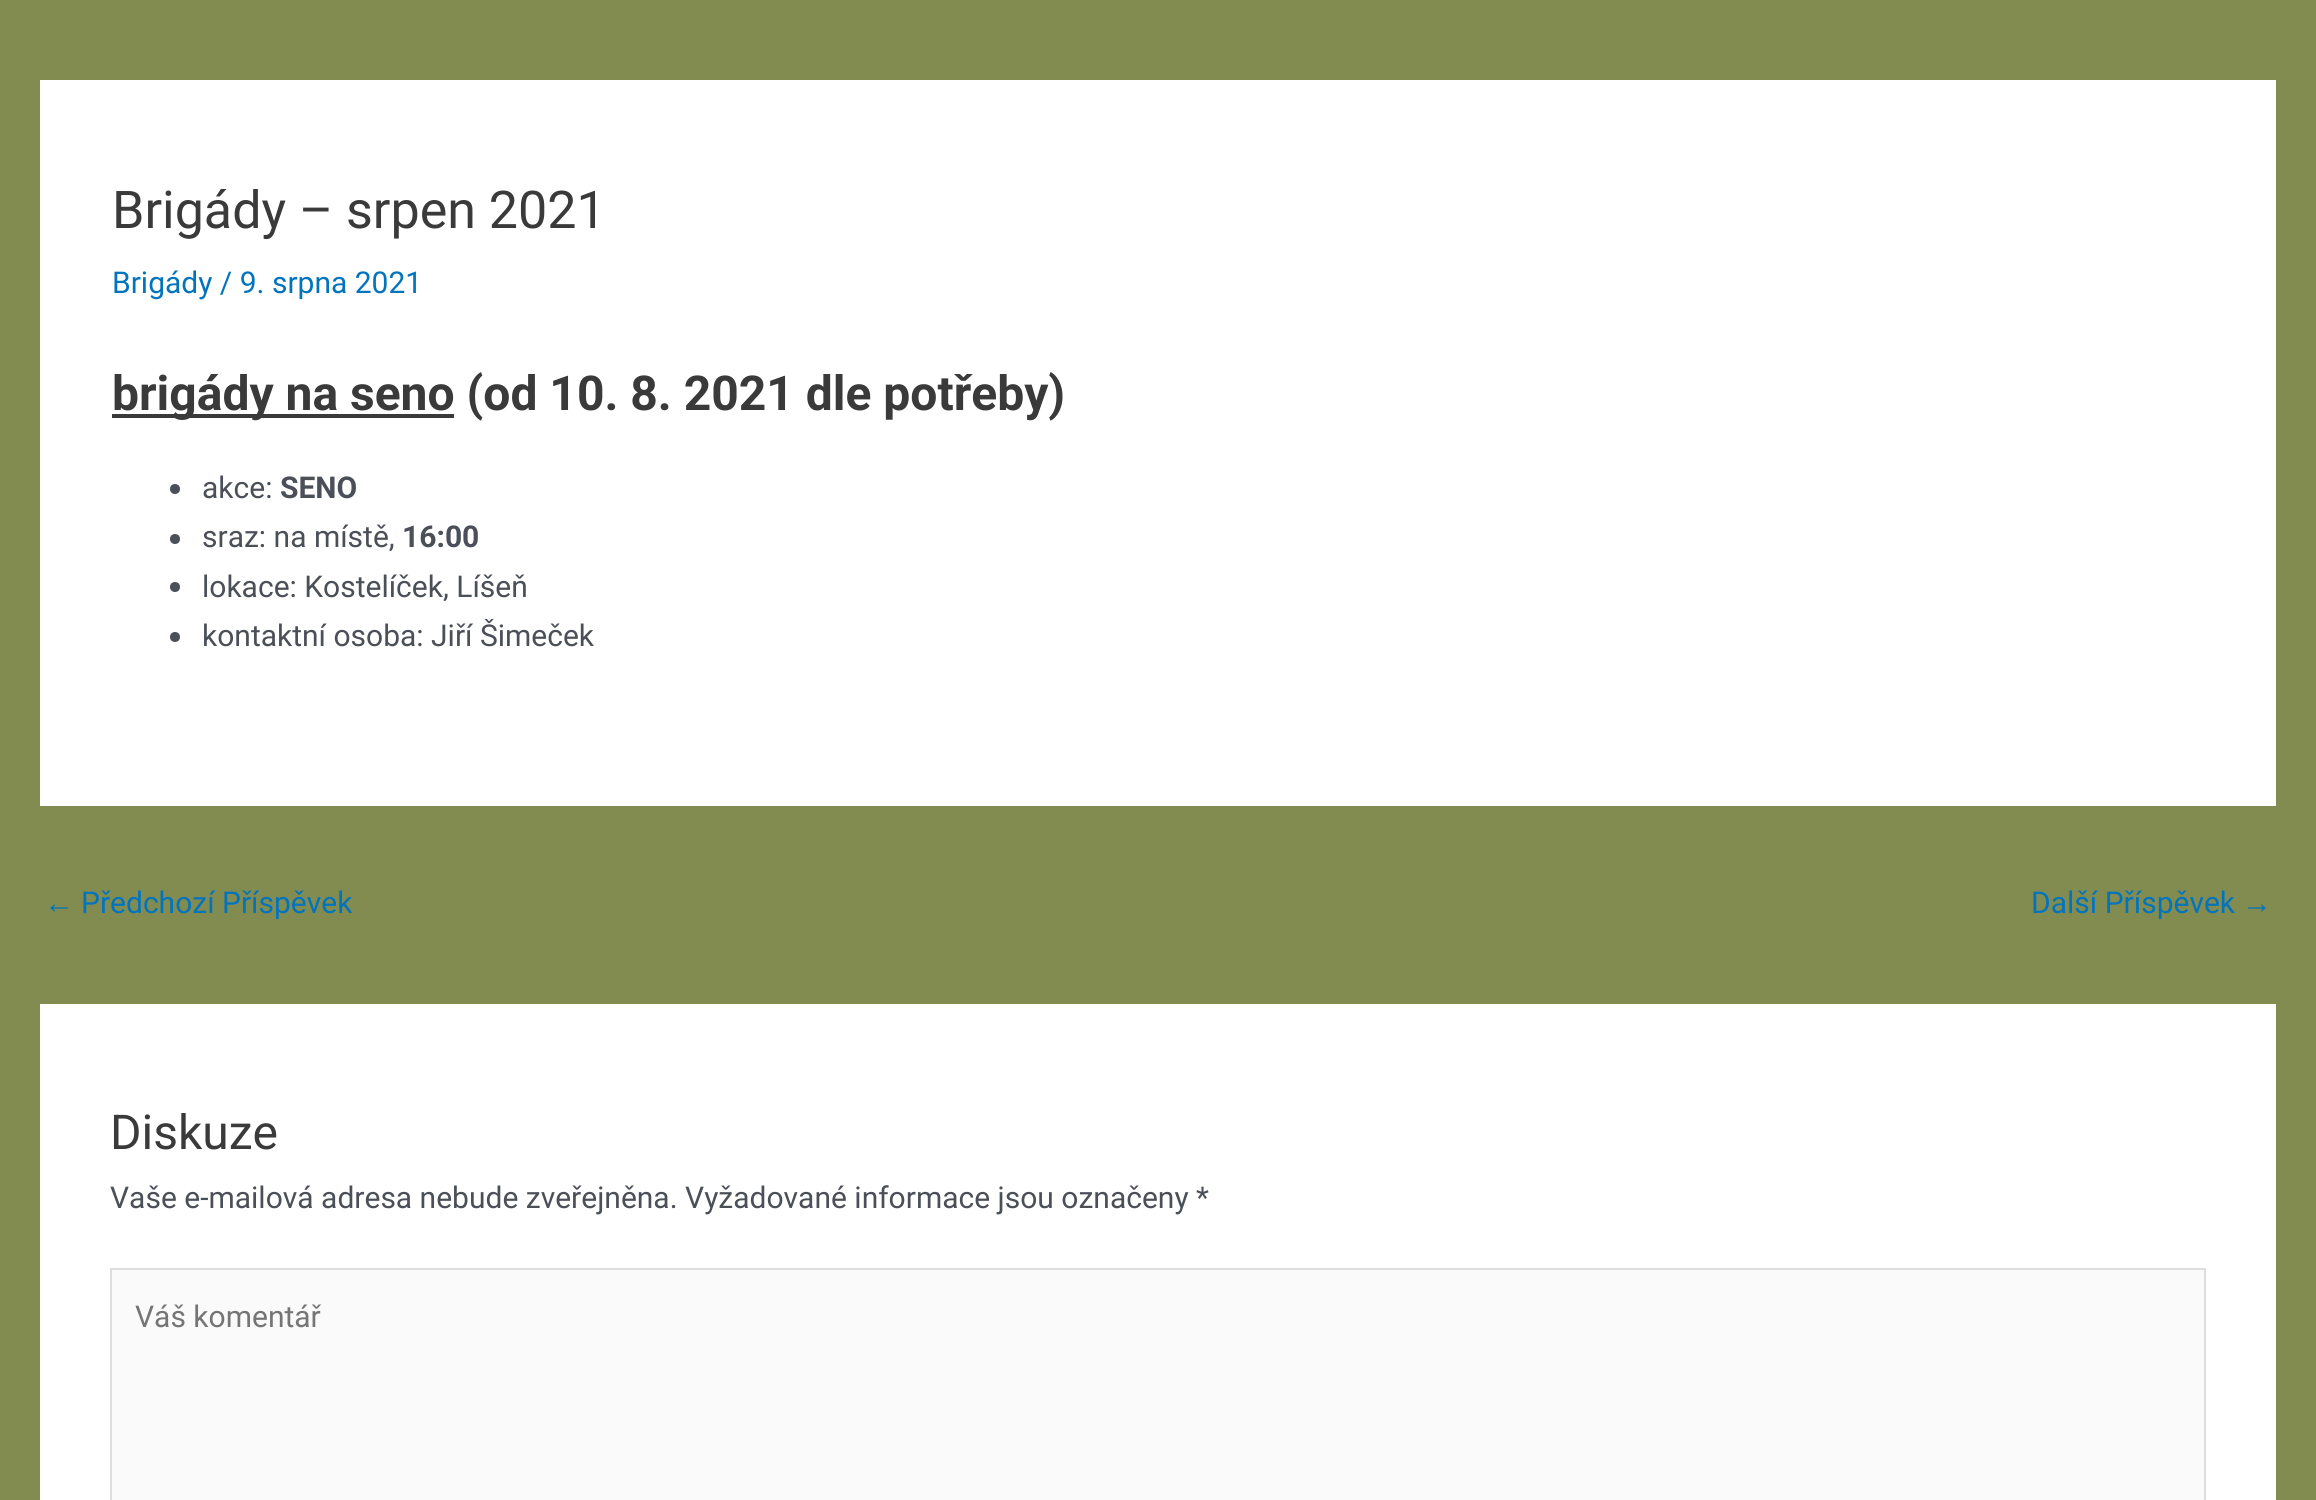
#include <cairo.h>
#include <math.h>
#include <stddef.h>

typedef struct { const char *family; double size; int italic, bold; unsigned color; } style_t;
static cairo_t *ctx;

static void ink(unsigned color) {
    cairo_set_source_rgb(ctx, (color >> 16) / 255.0, (color >> 8 & 255) / 255.0, (color & 255) / 255.0);
}

static void write(double x, double y, const char *s, const style_t *st) {
    cairo_select_font_face(ctx, st->family, st->italic ? CAIRO_FONT_SLANT_ITALIC : CAIRO_FONT_SLANT_NORMAL,
        st->bold ? CAIRO_FONT_WEIGHT_BOLD : CAIRO_FONT_WEIGHT_NORMAL);
    cairo_set_font_size(ctx, st->size);
    ink(st->color);
    cairo_move_to(ctx, x, y);
    cairo_show_text(ctx, s);
}

static void block(double x, double y, double w, double h, unsigned color) {
    ink(color);
    cairo_rectangle(ctx, x, y, w, h);
    cairo_fill(ctx);
}

static const style_t s1 = {"Roboto", 52, 0, 0, 0x3a3a3a};
static const style_t s2 = {"Roboto", 30, 0, 0, 0x0274be};
static const style_t s3 = {"Roboto", 48, 0, 1, 0x3a3a3a};
static const style_t s4 = {"Roboto", 30, 0, 0, 0x4b4f58};
static const style_t s5 = {"Roboto", 30, 0, 1, 0x4b4f58};
static const style_t s6 = {"Liberation Sans", 30, 0, 0, 0x0274be};
static const style_t s7 = {"Roboto", 48, 0, 0, 0x3a3a3a};
static const style_t s8 = {"Roboto", 30, 0, 0, 0x757575};

int main(void) {
    cairo_surface_t *surface = cairo_image_surface_create(CAIRO_FORMAT_RGB24, 2316, 1500);
    ctx = cairo_create(surface);
    cairo_font_options_t *options = cairo_font_options_create();
    cairo_font_options_set_hint_metrics(options, CAIRO_HINT_METRICS_OFF);
    cairo_font_options_set_hint_style(options, CAIRO_HINT_STYLE_NONE);
    cairo_set_font_options(ctx, options);
    cairo_set_miter_limit(ctx, 4);
    ink(0x828c51);
    cairo_paint(ctx);
    block(40, 80, 2236, 726, 0xffffff);
    write(112, 228, "Brigády – srpen 2021", &s1);
    write(112, 293, "Brigády / 9. srpna 2021", &s2);
    block(112, 414, 342, 4, 0x3a3a3a);
    write(112, 410, "brigády na seno (od 10. 8. 2021 dle potřeby)", &s3);
    ink(0x4b4f58);
    cairo_new_path(ctx);
    cairo_arc(ctx, 175, 489, 5, 0, 2 * M_PI);
    cairo_fill(ctx);
    write(202, 498, "akce:", &s4);
    write(280, 498, "SENO", &s5);
    cairo_new_path(ctx);
    cairo_arc(ctx, 175, 539, 5, 0, 2 * M_PI);
    cairo_fill(ctx);
    write(202, 547, "sraz: na místě,", &s4);
    write(402, 547, "16:00", &s5);
    cairo_new_path(ctx);
    cairo_arc(ctx, 175, 587, 5, 0, 2 * M_PI);
    cairo_fill(ctx);
    write(202, 597, "lokace: Kostelíček, Líšeň", &s4);
    cairo_new_path(ctx);
    cairo_arc(ctx, 175, 637, 5, 0, 2 * M_PI);
    cairo_fill(ctx);
    write(202, 646, "kontaktní osoba: Jiří Šimeček", &s4);
    write(44, 913, "←", &s6);
    write(81, 913, "Předchozí Příspěvek", &s2);
    write(2031, 913, "Další Příspěvek", &s2);
    write(2242, 913, "→", &s6);
    block(40, 1004, 2236, 496, 0xffffff);
    write(110, 1149, "Diskuze", &s7);
    write(110, 1208, "Vaše e-mailová adresa nebude zveřejněna. Vyžadované informace jsou označeny *", &s4);
    ink(0xfafafa);
    cairo_rectangle(ctx, 111, 1269, 2094, 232);
    cairo_fill_preserve(ctx);
    ink(0xdddddd);
    cairo_stroke(ctx);
    write(135, 1327, "Váš komentář", &s8);
    cairo_surface_write_to_png(surface, "screenshot.png");
    cairo_font_options_destroy(options);
    cairo_destroy(ctx);
    cairo_surface_destroy(surface);
    return 0;
}
